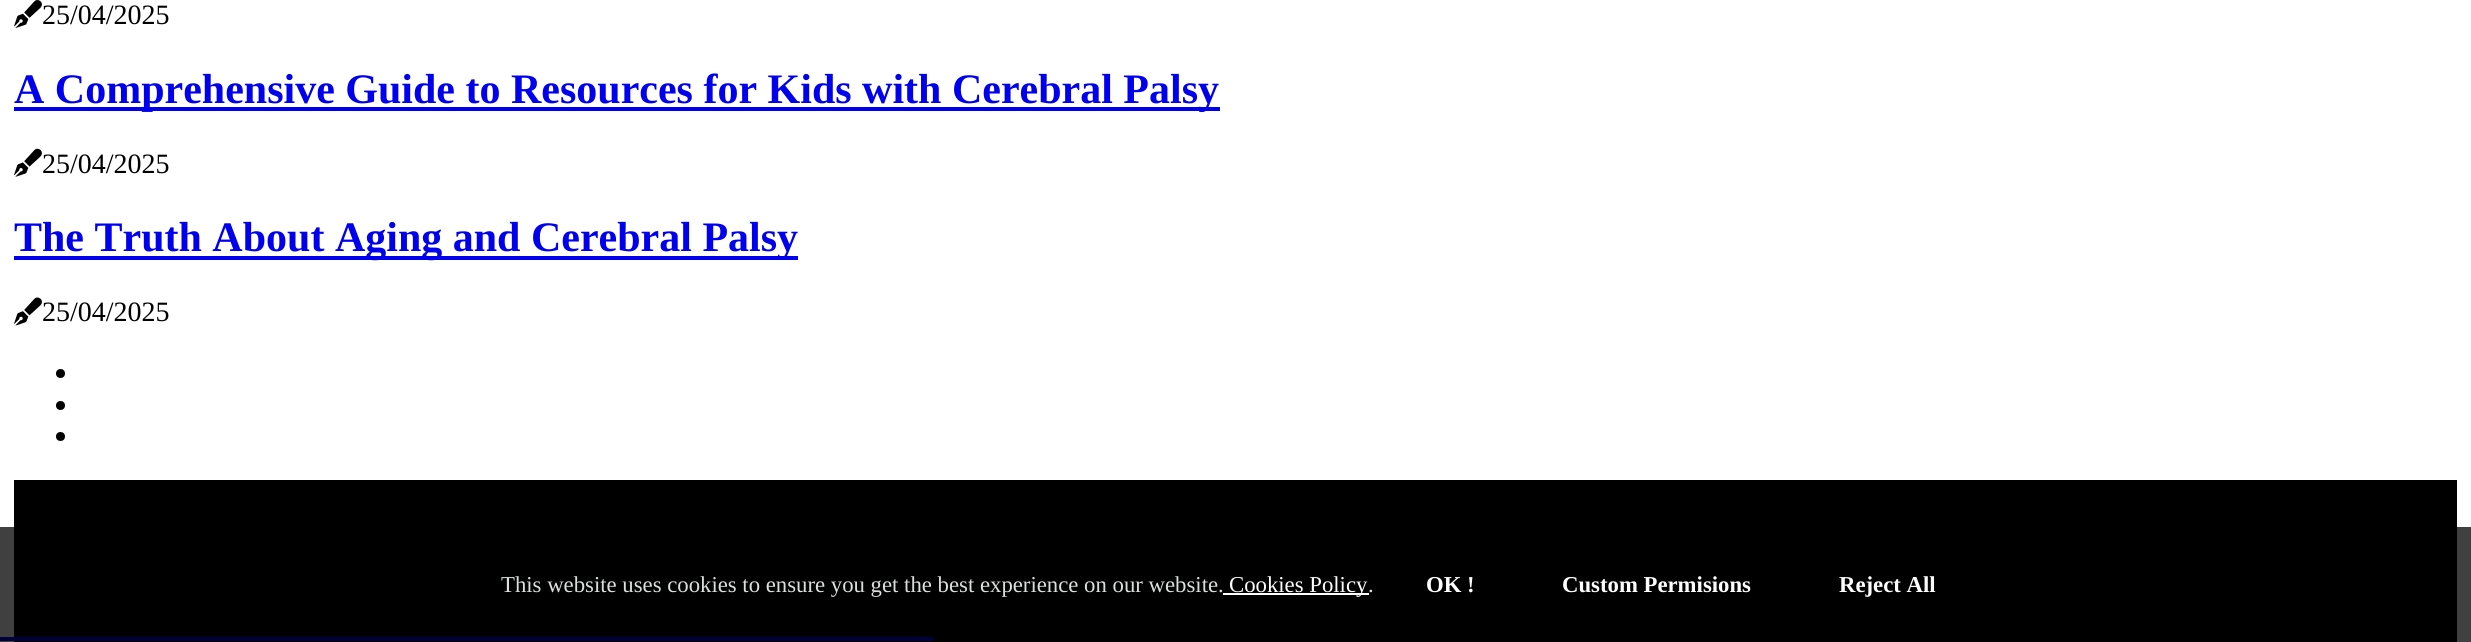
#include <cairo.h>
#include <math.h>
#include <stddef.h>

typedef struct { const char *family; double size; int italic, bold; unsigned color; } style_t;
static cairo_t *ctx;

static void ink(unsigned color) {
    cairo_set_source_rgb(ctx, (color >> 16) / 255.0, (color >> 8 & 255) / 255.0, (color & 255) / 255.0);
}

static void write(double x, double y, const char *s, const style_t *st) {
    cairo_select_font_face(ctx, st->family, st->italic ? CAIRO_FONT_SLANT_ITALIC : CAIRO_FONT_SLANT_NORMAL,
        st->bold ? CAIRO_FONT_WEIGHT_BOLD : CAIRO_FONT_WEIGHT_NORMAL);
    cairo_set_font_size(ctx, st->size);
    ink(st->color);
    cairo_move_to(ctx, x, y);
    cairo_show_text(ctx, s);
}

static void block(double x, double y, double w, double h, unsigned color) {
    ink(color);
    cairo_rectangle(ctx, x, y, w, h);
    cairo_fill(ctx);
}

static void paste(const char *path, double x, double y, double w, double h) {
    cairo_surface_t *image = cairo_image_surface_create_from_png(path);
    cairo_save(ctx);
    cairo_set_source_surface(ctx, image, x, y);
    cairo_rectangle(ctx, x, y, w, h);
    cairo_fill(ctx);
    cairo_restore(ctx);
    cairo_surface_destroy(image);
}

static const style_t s1 = {"Liberation Serif", 28, 0, 0, 0x000000};
static const style_t s2 = {"Liberation Serif", 42, 0, 1, 0x0000ee};
static const style_t s3 = {"Liberation Serif", 22.75, 0, 0, 0xdbe0df};
static const style_t s4 = {"Liberation Serif", 22.75, 0, 0, 0xffffff};
static const style_t s5 = {"Liberation Serif", 22.75, 0, 1, 0xffffff};

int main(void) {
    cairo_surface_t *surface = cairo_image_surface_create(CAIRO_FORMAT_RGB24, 2471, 642);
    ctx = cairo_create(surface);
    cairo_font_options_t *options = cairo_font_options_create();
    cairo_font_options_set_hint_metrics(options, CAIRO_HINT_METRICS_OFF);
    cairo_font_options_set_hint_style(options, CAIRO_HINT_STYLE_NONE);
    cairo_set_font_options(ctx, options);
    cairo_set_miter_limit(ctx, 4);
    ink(0xffffff);
    cairo_paint(ctx);
    paste("pic1.png", 14, 0, 28, 28);
    write(42, 24, "25/04/2025", &s1);
    block(14, 107, 1206, 4, 0x0000ee);
    write(14, 103, "A Comprehensive Guide to Resources for Kids with Cerebral Palsy", &s2);
    paste("pic2.png", 14, 148, 28, 29);
    write(42, 173, "25/04/2025", &s1);
    block(14, 256, 784, 4, 0x0000ee);
    write(14, 251, "The Truth About Aging and Cerebral Palsy", &s2);
    paste("pic3.png", 14, 297, 28, 29);
    write(42, 321, "25/04/2025", &s1);
    cairo_new_path(ctx);
    cairo_arc(ctx, 60.5, 373.5, 4.5, 0, 2 * M_PI);
    cairo_fill(ctx);
    cairo_arc(ctx, 60.5, 405.5, 4.5, 0, 2 * M_PI);
    cairo_fill(ctx);
    cairo_arc(ctx, 60.5, 436.5, 4.5, 0, 2 * M_PI);
    cairo_fill(ctx);
    block(14, 480, 2443, 162, 0x000000);
    block(0, 637, 933, 4, 0x0000ee);
    cairo_set_source_rgba(ctx, 0, 0, 0, 0.75);
    cairo_rectangle(ctx, 0, 527, 2471, 115);
    cairo_fill(ctx);
    write(501, 592, "This website uses cookies to ensure you get the best experience on our website.", &s3);
    block(1223, 593, 146, 2, 0xffffff);
    write(1229, 592, "Cookies Policy", &s4);
    write(1368, 592, ".", &s3);
    write(1426, 592, "OK !", &s5);
    write(1562, 592, "Custom Permisions", &s5);
    write(1839, 592, "Reject All", &s5);
    cairo_surface_write_to_png(surface, "screenshot.png");
    cairo_font_options_destroy(options);
    cairo_destroy(ctx);
    cairo_surface_destroy(surface);
    return 0;
}
